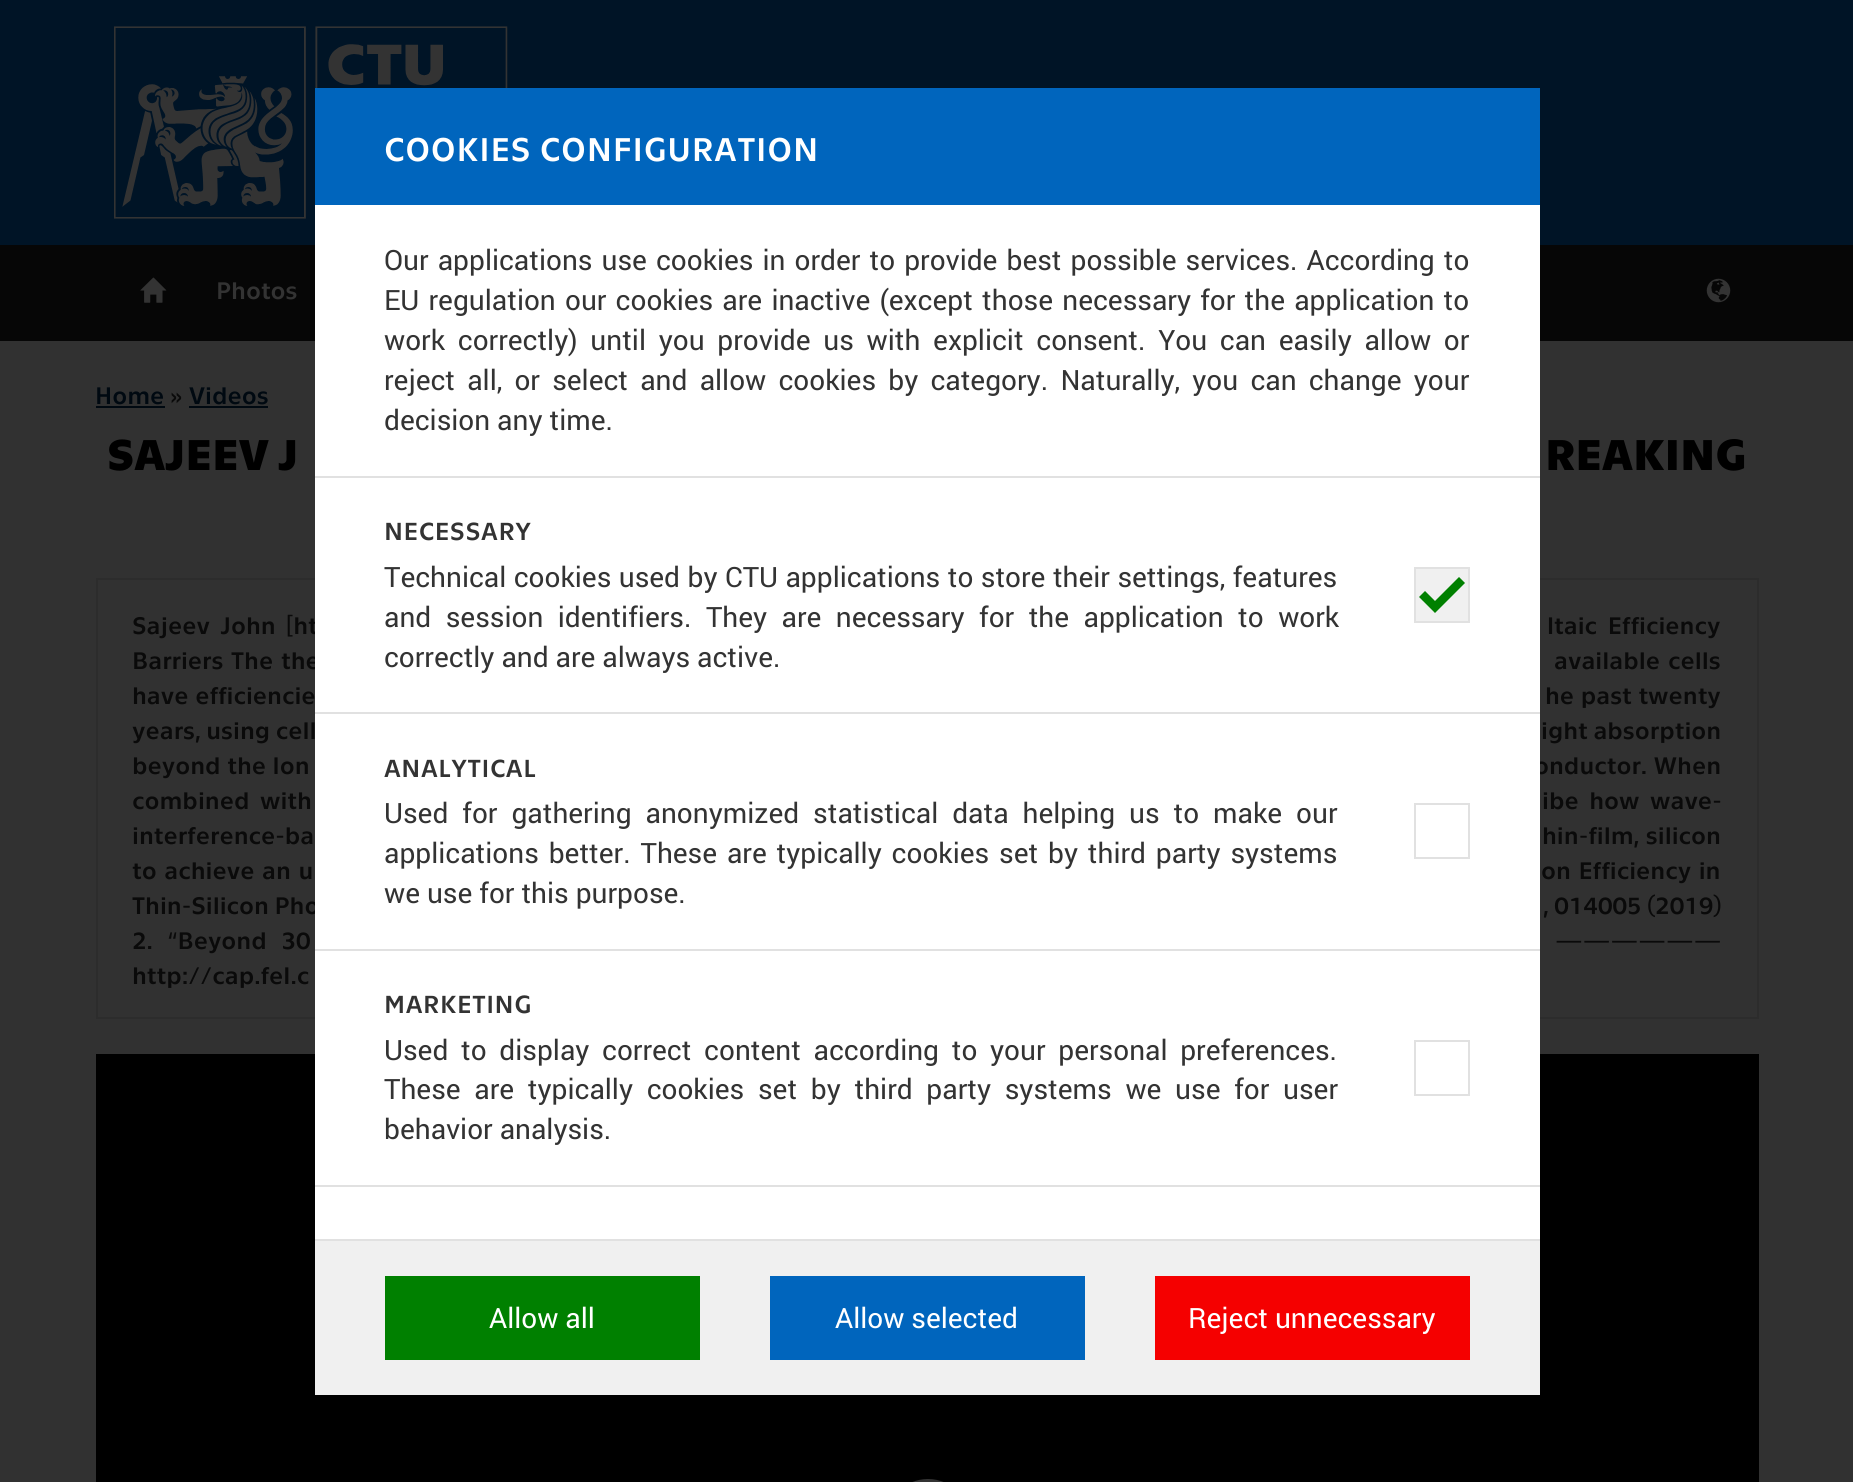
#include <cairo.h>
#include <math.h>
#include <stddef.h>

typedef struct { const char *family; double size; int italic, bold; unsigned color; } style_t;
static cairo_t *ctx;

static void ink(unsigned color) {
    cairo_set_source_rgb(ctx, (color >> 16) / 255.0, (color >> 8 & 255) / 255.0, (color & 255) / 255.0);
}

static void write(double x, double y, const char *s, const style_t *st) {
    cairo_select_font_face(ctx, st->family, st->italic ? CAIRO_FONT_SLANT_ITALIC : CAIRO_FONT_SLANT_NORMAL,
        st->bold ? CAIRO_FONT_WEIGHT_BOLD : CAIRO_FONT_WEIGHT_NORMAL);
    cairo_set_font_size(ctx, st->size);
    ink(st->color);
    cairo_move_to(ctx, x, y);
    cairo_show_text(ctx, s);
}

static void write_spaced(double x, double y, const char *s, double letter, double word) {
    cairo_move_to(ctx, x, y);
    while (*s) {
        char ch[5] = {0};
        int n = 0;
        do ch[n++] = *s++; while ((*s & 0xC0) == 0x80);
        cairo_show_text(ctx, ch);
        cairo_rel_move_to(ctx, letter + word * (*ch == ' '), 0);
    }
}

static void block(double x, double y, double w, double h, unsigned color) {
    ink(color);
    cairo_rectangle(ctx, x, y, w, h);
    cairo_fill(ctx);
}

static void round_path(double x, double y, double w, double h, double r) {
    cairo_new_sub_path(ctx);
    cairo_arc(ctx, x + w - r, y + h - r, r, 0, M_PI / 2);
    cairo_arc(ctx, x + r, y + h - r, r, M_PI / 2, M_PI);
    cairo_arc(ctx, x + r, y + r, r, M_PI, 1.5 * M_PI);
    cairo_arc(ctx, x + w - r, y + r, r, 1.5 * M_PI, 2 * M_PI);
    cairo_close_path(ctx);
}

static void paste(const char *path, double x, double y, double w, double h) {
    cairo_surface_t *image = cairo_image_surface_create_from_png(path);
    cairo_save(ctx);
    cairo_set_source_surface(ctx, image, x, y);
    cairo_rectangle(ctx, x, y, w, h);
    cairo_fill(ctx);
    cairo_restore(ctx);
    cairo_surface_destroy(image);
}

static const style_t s1 = {"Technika", 24.5, 0, 0, 0x333333};
static const style_t s2 = {"Technika", 24.5, 0, 0, 0x0a0a0a};
static const style_t s3 = {"Roboto", 28, 0, 0, 0x333333};
static const style_t s4 = {"Roboto", 28, 0, 0, 0xffffff};
static const style_t s5 = {"Technika", 24.5, 0, 0, 0x000911};
static const style_t s6 = {"Technika", 44, 0, 1, 0x000000};

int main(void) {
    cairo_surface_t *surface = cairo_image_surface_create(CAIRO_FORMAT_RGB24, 1853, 1482);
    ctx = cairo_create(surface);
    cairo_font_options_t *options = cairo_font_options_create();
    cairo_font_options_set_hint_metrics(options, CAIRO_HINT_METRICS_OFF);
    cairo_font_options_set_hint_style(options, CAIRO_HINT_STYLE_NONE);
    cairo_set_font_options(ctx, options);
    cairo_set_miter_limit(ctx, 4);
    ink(0x060606);
    cairo_paint(ctx);
    block(0, 0, 1853, 245, 0x001426);
    paste("pic1.png", 114, 26, 394, 193);
    paste("pic2.png", 140, 277, 27, 26);
    write(216, 299, "Photos", &s1);
    paste("pic3.png", 1706, 278, 25, 25);
    block(0, 341, 1853, 1141, 0x313131);
    cairo_rectangle(ctx, 97, 579, 1661, 439);
    ink(0x2c2c2c);
    cairo_stroke(ctx);
    ink(0x0a0a0a);
    write_spaced(132, 634, "Sajeev John [ht", 0, 5);
    write_spaced(231, 669, "The the", 0, 2.25);
    write(132, 739, "years, using cell", &s2);
    write_spaced(1534, 774, "onductor. When", 0, 1);
    write(132, 914, "Thin-Silicon Pho", &s2);
    block(96, 1054, 1663, 428, 0x000000);
    block(315, 205, 1225, 1034, 0xffffff);
    block(315, 88, 1225, 117, 0x0065bd);
    cairo_set_font_size(ctx, 33.6);
    ink(0xffffff);
    write_spaced(384, 161, "COOKIES CONFIGURATION", 0.8, 0);
    cairo_select_font_face(ctx, "Roboto", CAIRO_FONT_SLANT_NORMAL, CAIRO_FONT_WEIGHT_NORMAL);
    cairo_set_font_size(ctx, 28);
    ink(0x333333);
    write_spaced(384, 270, "Our applications use cookies in order to provide best possible services. According to", 0, 2.1);
    write_spaced(384, 310, "EU regulation our cookies are inactive (except those necessary for the application to", 0, 2.25);
    write_spaced(384, 350, "work correctly) until you provide us with explicit consent. You can easily allow or", 0, 5.75);
    write_spaced(384, 390, "reject all, or select and allow cookies by category. Naturally, you can change your", 0, 5.25);
    write(384, 430, "decision any time.", &s3);
    block(315, 476, 1225, 2, 0xe1e1e1);
    block(315, 712, 1225, 2, 0xe1e1e1);
    cairo_select_font_face(ctx, "Technika", CAIRO_FONT_SLANT_NORMAL, CAIRO_FONT_WEIGHT_NORMAL);
    cairo_set_font_size(ctx, 25.25);
    ink(0x333333);
    write_spaced(384, 540, "NECESSARY", 0.6, 0);
    cairo_select_font_face(ctx, "Roboto", CAIRO_FONT_SLANT_NORMAL, CAIRO_FONT_WEIGHT_NORMAL);
    cairo_set_font_size(ctx, 28);
    write_spaced(384, 587, "Technical cookies used by CTU applications to store their settings, features", 0, 0.5);
    write_spaced(384, 627, "and session identifiers. They are necessary for the application to work", 0, 7.5);
    write(384, 667, "correctly and are always active.", &s3);
    block(1416, 569, 52, 52, 0xf0f0f0);
    ink(0x008000);
    cairo_new_path(ctx);
    cairo_move_to(ctx, 1435, 613);
    cairo_line_to(ctx, 1465, 583);
    cairo_line_to(ctx, 1459, 577);
    cairo_line_to(ctx, 1435, 601);
    cairo_line_to(ctx, 1425, 591);
    cairo_line_to(ctx, 1419, 597);
    cairo_close_path(ctx);
    cairo_fill(ctx);
    cairo_rectangle(ctx, 1415, 568, 54, 54);
    ink(0xe1e1e1);
    cairo_stroke(ctx);
    block(315, 949, 1225, 2, 0xe1e1e1);
    cairo_select_font_face(ctx, "Technika", CAIRO_FONT_SLANT_NORMAL, CAIRO_FONT_WEIGHT_NORMAL);
    cairo_set_font_size(ctx, 25.25);
    ink(0x333333);
    write_spaced(384, 777, "ANALYTICAL", 0.6, 0);
    cairo_select_font_face(ctx, "Roboto", CAIRO_FONT_SLANT_NORMAL, CAIRO_FONT_WEIGHT_NORMAL);
    cairo_set_font_size(ctx, 28);
    write_spaced(384, 823, "Used for gathering anonymized statistical data helping us to make our", 0, 7);
    write_spaced(384, 863, "applications better. These are typically cookies set by third party systems", 0, 2.9);
    write(384, 903, "we use for this purpose.", &s3);
    cairo_rectangle(ctx, 1415, 804, 54, 54);
    ink(0xe1e1e1);
    cairo_stroke(ctx);
    block(315, 1185, 1225, 2, 0xe1e1e1);
    cairo_select_font_face(ctx, "Technika", CAIRO_FONT_SLANT_NORMAL, CAIRO_FONT_WEIGHT_NORMAL);
    cairo_set_font_size(ctx, 25.25);
    ink(0x333333);
    write_spaced(384, 1013, "MARKETING", 0.6, 0);
    cairo_select_font_face(ctx, "Roboto", CAIRO_FONT_SLANT_NORMAL, CAIRO_FONT_WEIGHT_NORMAL);
    cairo_set_font_size(ctx, 28);
    write_spaced(384, 1060, "Used to display correct content according to your personal preferences.", 0, 5.75);
    write_spaced(384, 1099, "These are typically cookies set by third party systems we use for user", 0, 6.75);
    write(384, 1139, "behavior analysis.", &s3);
    cairo_rectangle(ctx, 1415, 1041, 54, 54);
    ink(0xe1e1e1);
    cairo_stroke(ctx);
    block(315, 1241, 1225, 154, 0xf0f0f0);
    block(315, 1239, 1225, 2, 0xe1e1e1);
    block(385, 1276, 315, 84, 0x008000);
    write(489, 1328, "Allow all", &s4);
    block(770, 1276, 315, 84, 0x0065bd);
    write(835, 1328, "Allow selected", &s4);
    block(1155, 1276, 315, 84, 0xf50000);
    write(1188, 1328, "Reject unnecessary", &s4);
    write(95, 404, "Home", &s5);
    block(96, 406, 69, 2, 0x000911);
    write(170, 404, "»", &s2);
    write(189, 404, "Videos", &s5);
    block(189, 406, 79, 2, 0x000911);
    write(107, 470, "SAJEEV J", &s6);
    write(1545, 470, "REAKING", &s6);
    cairo_select_font_face(ctx, "Technika", CAIRO_FONT_SLANT_NORMAL, CAIRO_FONT_WEIGHT_NORMAL);
    cairo_set_font_size(ctx, 24.5);
    ink(0x0a0a0a);
    write_spaced(1547, 634, "ltaic Efficiency", 0, 5);
    write(132, 669, "Barriers", &s2);
    write_spaced(1554, 669, "available cells", 0, 2.25);
    write_spaced(132, 704, "have efficiencie", 0, 1);
    write_spaced(1545, 704, "he past twenty", 0, 1);
    write(1541, 739, "ight absorption", &s2);
    write_spaced(132, 774, "beyond the lon", 0, 1);
    write_spaced(132, 809, "combined with", 0, 5);
    write_spaced(1542, 809, "ibe how wave-", 0, 5);
    write_spaced(132, 844, "interference-ba", 0, 1);
    write_spaced(1542, 844, "hin-film, silicon", 0, 1);
    write_spaced(132, 879, "to achieve an u", 0, 2);
    write_spaced(1541, 879, "on Efficiency in", 0, 2);
    write(1543, 914, ", 014005 (2019)", &s2);
    write_spaced(132, 949, "2. “Beyond 30", 0, 9);
    write_spaced(1555, 949, "——————", 0, 9);
    write(132, 984, "http://cap.fel.c", &s2);
    round_path(889.5, 1482.5, 77, 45, 38.5);
    ink(0x333333);
    cairo_set_line_width(ctx, 7);
    cairo_stroke(ctx);
    cairo_surface_write_to_png(surface, "screenshot.png");
    cairo_font_options_destroy(options);
    cairo_destroy(ctx);
    cairo_surface_destroy(surface);
    return 0;
}
